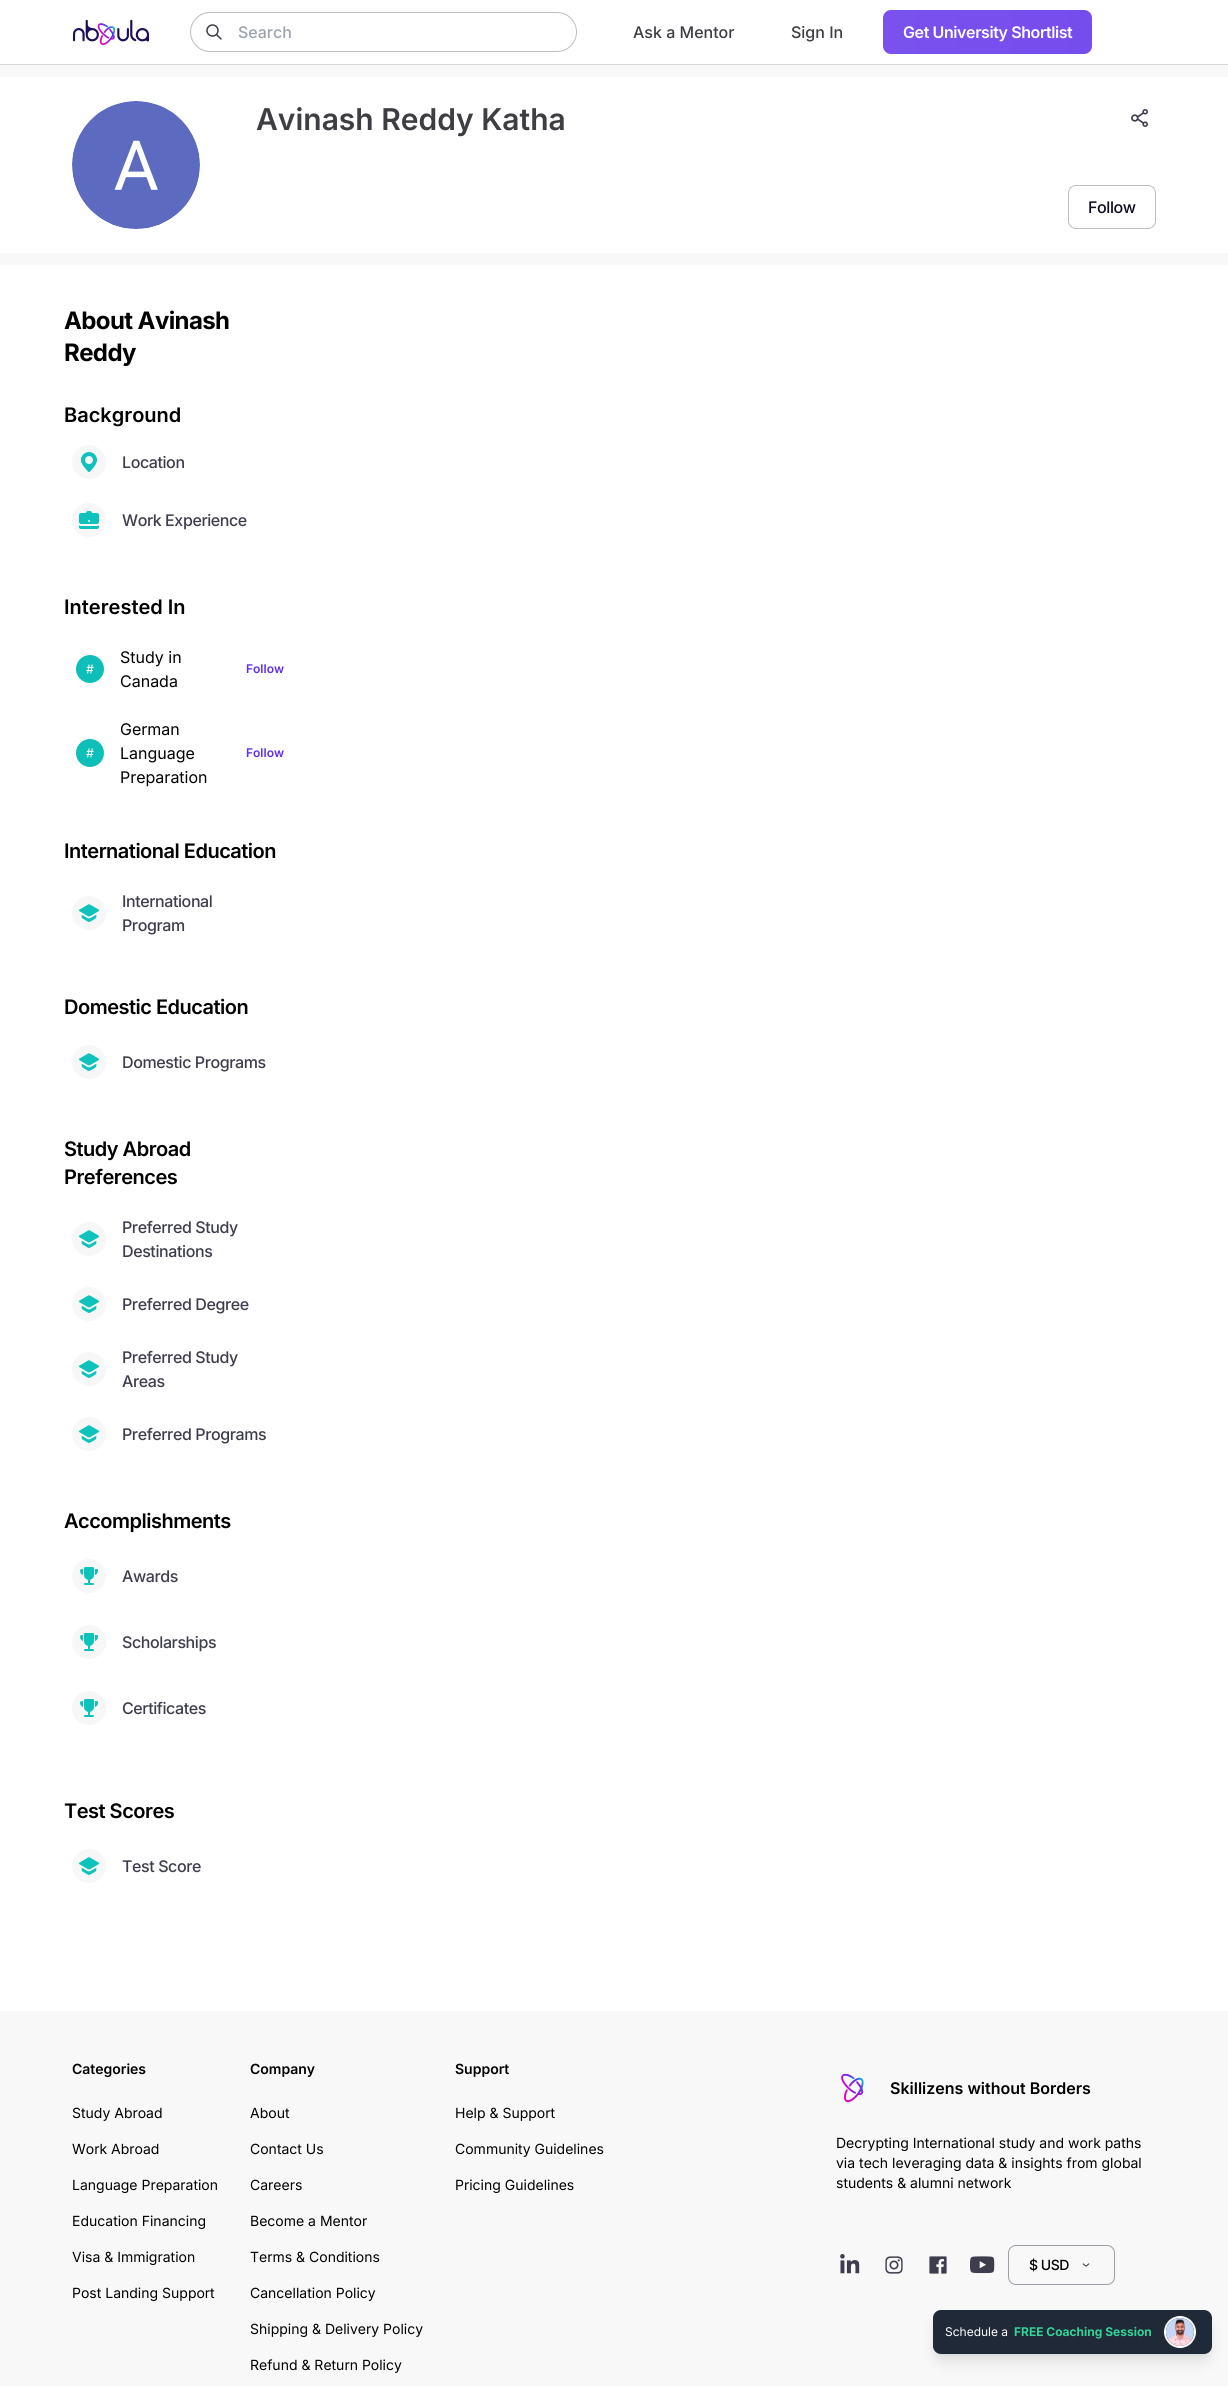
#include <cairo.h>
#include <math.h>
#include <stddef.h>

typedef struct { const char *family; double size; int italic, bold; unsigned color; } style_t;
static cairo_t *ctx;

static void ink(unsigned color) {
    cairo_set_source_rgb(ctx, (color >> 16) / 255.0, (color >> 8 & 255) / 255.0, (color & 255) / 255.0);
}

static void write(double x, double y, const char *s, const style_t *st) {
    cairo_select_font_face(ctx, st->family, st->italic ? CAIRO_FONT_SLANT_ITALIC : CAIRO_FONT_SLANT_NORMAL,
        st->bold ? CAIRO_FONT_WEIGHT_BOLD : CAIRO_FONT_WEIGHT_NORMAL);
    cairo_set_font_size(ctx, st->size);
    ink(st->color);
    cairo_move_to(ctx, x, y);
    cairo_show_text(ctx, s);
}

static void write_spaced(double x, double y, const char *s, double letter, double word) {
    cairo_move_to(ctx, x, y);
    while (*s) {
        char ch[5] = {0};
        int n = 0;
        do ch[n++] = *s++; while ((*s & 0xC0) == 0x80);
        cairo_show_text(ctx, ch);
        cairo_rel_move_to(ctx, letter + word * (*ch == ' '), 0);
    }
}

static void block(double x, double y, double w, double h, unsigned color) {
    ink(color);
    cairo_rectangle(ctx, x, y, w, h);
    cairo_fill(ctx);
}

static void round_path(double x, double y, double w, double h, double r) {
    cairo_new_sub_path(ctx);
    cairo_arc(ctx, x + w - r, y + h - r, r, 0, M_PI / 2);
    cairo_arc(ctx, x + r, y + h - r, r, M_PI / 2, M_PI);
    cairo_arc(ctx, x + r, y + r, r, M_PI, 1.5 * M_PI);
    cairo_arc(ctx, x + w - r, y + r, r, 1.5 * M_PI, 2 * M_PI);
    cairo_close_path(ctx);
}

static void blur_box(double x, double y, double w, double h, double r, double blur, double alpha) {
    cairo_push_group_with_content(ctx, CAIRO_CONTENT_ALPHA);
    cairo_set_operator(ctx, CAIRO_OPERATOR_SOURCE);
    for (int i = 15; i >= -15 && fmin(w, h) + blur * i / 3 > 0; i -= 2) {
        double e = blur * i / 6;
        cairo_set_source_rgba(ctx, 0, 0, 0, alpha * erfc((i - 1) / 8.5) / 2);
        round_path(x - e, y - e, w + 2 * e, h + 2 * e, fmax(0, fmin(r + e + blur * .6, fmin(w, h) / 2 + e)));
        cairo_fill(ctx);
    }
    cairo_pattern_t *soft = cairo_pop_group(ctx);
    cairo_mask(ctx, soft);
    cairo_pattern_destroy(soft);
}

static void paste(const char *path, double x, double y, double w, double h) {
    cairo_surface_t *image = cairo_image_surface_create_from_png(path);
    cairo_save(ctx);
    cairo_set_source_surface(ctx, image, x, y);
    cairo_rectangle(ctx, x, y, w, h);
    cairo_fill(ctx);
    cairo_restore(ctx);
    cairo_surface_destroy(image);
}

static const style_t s1 = {"Inter Medium", 16, 0, 0, 0x9ca3af};
static const style_t s2 = {"Inter Medium", 16, 0, 0, 0x3d3d43};
static const style_t s3 = {"Inter", 12, 0, 0, 0xffffff};
static const style_t s4 = {"Inter", 12, 0, 1, 0x34d399};
static const style_t s5 = {"Inter SemiBold", 30, 0, 0, 0x3d3d43};
static const style_t s6 = {"Inter SemiBold", 20, 0, 0, 0x000000};
static const style_t s7 = {"Inter", 16, 0, 0, 0x000000};
static const style_t s8 = {"Inter SemiBold", 12, 0, 0, 0x5f2eea};
static const style_t s9 = {"Inter SemiBold", 14, 0, 0, 0x000000};
static const style_t s10 = {"Inter", 14, 0, 0, 0x000000};
static const style_t s11 = {"Inter SemiBold", 16, 0, 0, 0x000000};

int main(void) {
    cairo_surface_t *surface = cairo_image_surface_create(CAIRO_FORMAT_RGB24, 1228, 2386);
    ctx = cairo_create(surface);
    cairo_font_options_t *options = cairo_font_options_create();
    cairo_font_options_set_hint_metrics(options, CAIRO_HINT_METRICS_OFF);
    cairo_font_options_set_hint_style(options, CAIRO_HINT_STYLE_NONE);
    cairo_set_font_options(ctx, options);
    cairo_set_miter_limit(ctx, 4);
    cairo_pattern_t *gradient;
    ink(0xffffff);
    cairo_paint(ctx);
    block(0, 64, 1228, 1, 0xd7d7d9);
    paste("pic1.png", 72, 19, 78, 26);
    round_path(190.5, 12.5, 386, 39, 19.5);
    ink(0xbcbcc2);
    cairo_set_line_width(ctx, 1);
    cairo_stroke(ctx);
    paste("pic2.png", 206, 24, 16, 16);
    write(238, 38, "Search", &s1);
    write(633, 38, "Ask a Mentor", &s2);
    write(791, 38, "Sign In", &s2);
    gradient = cairo_pattern_create_linear(593, 32, 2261, 32);
    cairo_pattern_add_color_stop_rgba(gradient, 0, 0.498, 0.345, 0.933, 1);
    cairo_pattern_add_color_stop_rgba(gradient, 0.54, 0.435, 0.263, 0.925, 1);
    cairo_pattern_add_color_stop_rgba(gradient, 1, 0.373, 0.18, 0.918, 1);
    cairo_set_source(ctx, gradient);
    cairo_pattern_destroy(gradient);
    round_path(883, 10, 209, 44, 8);
    cairo_fill(ctx);
    cairo_select_font_face(ctx, "Inter SemiBold", CAIRO_FONT_SLANT_NORMAL, CAIRO_FONT_WEIGHT_NORMAL);
    ink(0xffffff);
    write_spaced(903, 38, "Get University Shortlist", -0.4, 0);
    block(0, 2011, 1228, 375, 0xf8f8f8);
    ink(0x000000);
    blur_box(935, 2316, 275, 40, 6, 3, 0.05);
    blur_box(936, 2323, 273, 38, 5, 7.5, 0.1);
    ink(0x1f2937);
    round_path(933, 2310, 279, 44, 8);
    cairo_fill(ctx);
    write(945, 2336, "Schedule a", &s3);
    write(1014, 2336, "FREE Coaching Session", &s4);
    cairo_new_path(ctx);
    cairo_arc(ctx, 1180, 2332, 15, 0, 2 * M_PI);
    ink(0xffffff);
    cairo_set_line_width(ctx, 2);
    cairo_stroke(ctx);
    paste("pic3.png", 1166, 2318, 28, 28);
    block(0, 65, 1228, 12, 0xf8f8f8);
    block(0, 253, 1228, 12, 0xf8f8f8);
    ink(0xf9fafb);
    cairo_arc(ctx, 136, 165, 64, 0, 2 * M_PI);
    cairo_fill(ctx);
    paste("pic4.png", 72, 101, 128, 128);
    write(256, 130, "Avinash Reddy Katha", &s5);
    paste("pic5.png", 1131, 109, 17, 18);
    round_path(1068.5, 185.5, 87, 43, 7.5);
    ink(0xbcbcc2);
    cairo_set_line_width(ctx, 1);
    cairo_stroke(ctx);
    cairo_select_font_face(ctx, "Inter Medium", CAIRO_FONT_SLANT_NORMAL, CAIRO_FONT_WEIGHT_NORMAL);
    cairo_set_font_size(ctx, 16);
    ink(0x0d0c22);
    write_spaced(1088, 213, "Follow", -0.4, 0);
    cairo_select_font_face(ctx, "Inter", CAIRO_FONT_SLANT_NORMAL, CAIRO_FONT_WEIGHT_BOLD);
    cairo_set_font_size(ctx, 24);
    ink(0x000000);
    write_spaced(64, 329, "About Avinash", -0.6, 0);
    write_spaced(64, 361, "Reddy", -0.6, 0);
    write(64, 422, "Background", &s6);
    paste("pic6.png", 72, 445, 34, 34);
    cairo_select_font_face(ctx, "Inter Medium", CAIRO_FONT_SLANT_NORMAL, CAIRO_FONT_WEIGHT_NORMAL);
    cairo_set_font_size(ctx, 16);
    ink(0x3d3d4e);
    write_spaced(122, 468, "Location", -0.4, 0);
    paste("pic7.png", 72, 503, 34, 34);
    write_spaced(122, 526, "Work Experience", -0.4, 0);
    write(64, 614, "Interested In", &s6);
    paste("pic8.png", 76, 655, 28, 28);
    write(120, 663, "Study in", &s7);
    write(120, 687, "Canada", &s7);
    write(246, 673, "Follow", &s8);
    paste("pic8.png", 76, 739, 28, 28);
    write(120, 735, "German", &s7);
    write(120, 759, "Language", &s7);
    write(120, 783, "Preparation", &s7);
    write(246, 757, "Follow", &s8);
    cairo_set_font_size(ctx, 20);
    ink(0x000000);
    write_spaced(64, 858, "International Education", -0.5, 0);
    paste("pic9.png", 72, 896, 34, 34);
    cairo_select_font_face(ctx, "Inter Medium", CAIRO_FONT_SLANT_NORMAL, CAIRO_FONT_WEIGHT_NORMAL);
    cairo_set_font_size(ctx, 16);
    ink(0x3d3d4e);
    write_spaced(122, 907, "International", -0.4, 0);
    write_spaced(122, 931, "Program", -0.4, 0);
    cairo_select_font_face(ctx, "Inter SemiBold", CAIRO_FONT_SLANT_NORMAL, CAIRO_FONT_WEIGHT_NORMAL);
    cairo_set_font_size(ctx, 20);
    ink(0x000000);
    write_spaced(64, 1014, "Domestic Education", -0.5, 0);
    paste("pic9.png", 72, 1045, 34, 34);
    cairo_select_font_face(ctx, "Inter Medium", CAIRO_FONT_SLANT_NORMAL, CAIRO_FONT_WEIGHT_NORMAL);
    cairo_set_font_size(ctx, 16);
    ink(0x3d3d4e);
    write_spaced(122, 1068, "Domestic Programs", -0.4, 0);
    cairo_select_font_face(ctx, "Inter SemiBold", CAIRO_FONT_SLANT_NORMAL, CAIRO_FONT_WEIGHT_NORMAL);
    cairo_set_font_size(ctx, 20);
    ink(0x000000);
    write_spaced(64, 1156, "Study Abroad", -0.5, 0);
    write_spaced(64, 1184, "Preferences", -0.5, 0);
    paste("pic9.png", 72, 1222, 34, 34);
    cairo_select_font_face(ctx, "Inter Medium", CAIRO_FONT_SLANT_NORMAL, CAIRO_FONT_WEIGHT_NORMAL);
    cairo_set_font_size(ctx, 16);
    ink(0x3d3d4e);
    write_spaced(122, 1233, "Preferred Study", -0.4, 0);
    write_spaced(122, 1257, "Destinations", -0.4, 0);
    paste("pic9.png", 72, 1287, 34, 34);
    write_spaced(122, 1310, "Preferred Degree", -0.4, 0);
    paste("pic9.png", 72, 1352, 34, 34);
    write_spaced(122, 1363, "Preferred Study", -0.4, 0);
    write_spaced(122, 1387, "Areas", -0.4, 0);
    paste("pic9.png", 72, 1417, 34, 34);
    write_spaced(122, 1440, "Preferred Programs", -0.4, 0);
    cairo_select_font_face(ctx, "Inter SemiBold", CAIRO_FONT_SLANT_NORMAL, CAIRO_FONT_WEIGHT_NORMAL);
    cairo_set_font_size(ctx, 20);
    ink(0x000000);
    write_spaced(64, 1528, "Accomplishments", -0.5, 0);
    paste("pic10.png", 72, 1559, 34, 34);
    cairo_select_font_face(ctx, "Inter Medium", CAIRO_FONT_SLANT_NORMAL, CAIRO_FONT_WEIGHT_NORMAL);
    cairo_set_font_size(ctx, 16);
    ink(0x3d3d4e);
    write_spaced(122, 1582, "Awards", -0.4, 0);
    paste("pic10.png", 72, 1625, 34, 34);
    write_spaced(122, 1648, "Scholarships", -0.4, 0);
    paste("pic10.png", 72, 1691, 34, 34);
    write_spaced(122, 1714, "Certificates", -0.4, 0);
    cairo_select_font_face(ctx, "Inter SemiBold", CAIRO_FONT_SLANT_NORMAL, CAIRO_FONT_WEIGHT_NORMAL);
    cairo_set_font_size(ctx, 20);
    ink(0x000000);
    write_spaced(64, 1818, "Test Scores", -0.5, 0);
    paste("pic9.png", 72, 1849, 34, 34);
    cairo_select_font_face(ctx, "Inter Medium", CAIRO_FONT_SLANT_NORMAL, CAIRO_FONT_WEIGHT_NORMAL);
    cairo_set_font_size(ctx, 16);
    ink(0x3d3d4e);
    write_spaced(122, 1872, "Test Score", -0.4, 0);
    write(72, 2074, "Categories", &s9);
    write(72, 2118, "Study Abroad", &s10);
    write(72, 2154, "Work Abroad", &s10);
    write(72, 2190, "Language Preparation", &s10);
    write(72, 2226, "Education Financing", &s10);
    write(72, 2262, "Visa & Immigration", &s10);
    write(72, 2298, "Post Landing Support", &s10);
    write(250, 2074, "Company", &s9);
    write(250, 2118, "About", &s10);
    write(250, 2154, "Contact Us", &s10);
    write(250, 2190, "Careers", &s10);
    write(250, 2226, "Become a Mentor", &s10);
    write(250, 2262, "Terms & Conditions", &s10);
    write(250, 2298, "Cancellation Policy", &s10);
    write(250, 2334, "Shipping & Delivery Policy", &s10);
    write(250, 2370, "Refund & Return Policy", &s10);
    write(455, 2074, "Support", &s9);
    write(455, 2118, "Help & Support", &s10);
    write(455, 2154, "Community Guidelines", &s10);
    write(455, 2190, "Pricing Guidelines", &s10);
    paste("pic11.png", 841, 2073, 23, 30);
    write(890, 2094, "Skillizens without Borders", &s11);
    write(836, 2148, "Decrypting International study and work paths", &s10);
    write(836, 2168, "via tech leveraging data & insights from global", &s10);
    write(836, 2188, "students & alumni network", &s10);
    paste("pic12.png", 840, 2254, 20, 20);
    paste("pic13.png", 885, 2256, 18, 18);
    paste("pic14.png", 929, 2256, 18, 18);
    paste("pic15.png", 970, 2256, 25, 18);
    round_path(1008.5, 2245.5, 106, 39, 7.5);
    ink(0x9f9ea8);
    cairo_stroke(ctx);
    cairo_select_font_face(ctx, "Inter Medium", CAIRO_FONT_SLANT_NORMAL, CAIRO_FONT_WEIGHT_NORMAL);
    ink(0x000000);
    write_spaced(1029, 2270, "$ USD", -0.5, 0);
    paste("pic16.png", 1082, 2263, 8, 4);
    cairo_surface_write_to_png(surface, "screenshot.png");
    cairo_font_options_destroy(options);
    cairo_destroy(ctx);
    cairo_surface_destroy(surface);
    return 0;
}
